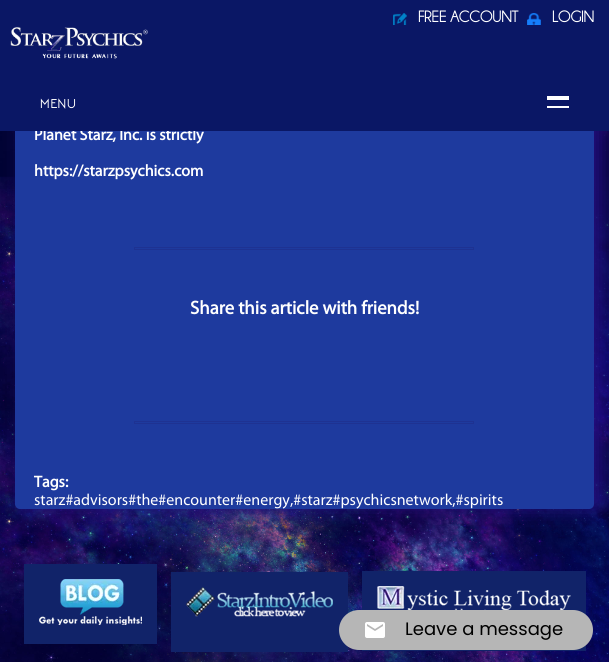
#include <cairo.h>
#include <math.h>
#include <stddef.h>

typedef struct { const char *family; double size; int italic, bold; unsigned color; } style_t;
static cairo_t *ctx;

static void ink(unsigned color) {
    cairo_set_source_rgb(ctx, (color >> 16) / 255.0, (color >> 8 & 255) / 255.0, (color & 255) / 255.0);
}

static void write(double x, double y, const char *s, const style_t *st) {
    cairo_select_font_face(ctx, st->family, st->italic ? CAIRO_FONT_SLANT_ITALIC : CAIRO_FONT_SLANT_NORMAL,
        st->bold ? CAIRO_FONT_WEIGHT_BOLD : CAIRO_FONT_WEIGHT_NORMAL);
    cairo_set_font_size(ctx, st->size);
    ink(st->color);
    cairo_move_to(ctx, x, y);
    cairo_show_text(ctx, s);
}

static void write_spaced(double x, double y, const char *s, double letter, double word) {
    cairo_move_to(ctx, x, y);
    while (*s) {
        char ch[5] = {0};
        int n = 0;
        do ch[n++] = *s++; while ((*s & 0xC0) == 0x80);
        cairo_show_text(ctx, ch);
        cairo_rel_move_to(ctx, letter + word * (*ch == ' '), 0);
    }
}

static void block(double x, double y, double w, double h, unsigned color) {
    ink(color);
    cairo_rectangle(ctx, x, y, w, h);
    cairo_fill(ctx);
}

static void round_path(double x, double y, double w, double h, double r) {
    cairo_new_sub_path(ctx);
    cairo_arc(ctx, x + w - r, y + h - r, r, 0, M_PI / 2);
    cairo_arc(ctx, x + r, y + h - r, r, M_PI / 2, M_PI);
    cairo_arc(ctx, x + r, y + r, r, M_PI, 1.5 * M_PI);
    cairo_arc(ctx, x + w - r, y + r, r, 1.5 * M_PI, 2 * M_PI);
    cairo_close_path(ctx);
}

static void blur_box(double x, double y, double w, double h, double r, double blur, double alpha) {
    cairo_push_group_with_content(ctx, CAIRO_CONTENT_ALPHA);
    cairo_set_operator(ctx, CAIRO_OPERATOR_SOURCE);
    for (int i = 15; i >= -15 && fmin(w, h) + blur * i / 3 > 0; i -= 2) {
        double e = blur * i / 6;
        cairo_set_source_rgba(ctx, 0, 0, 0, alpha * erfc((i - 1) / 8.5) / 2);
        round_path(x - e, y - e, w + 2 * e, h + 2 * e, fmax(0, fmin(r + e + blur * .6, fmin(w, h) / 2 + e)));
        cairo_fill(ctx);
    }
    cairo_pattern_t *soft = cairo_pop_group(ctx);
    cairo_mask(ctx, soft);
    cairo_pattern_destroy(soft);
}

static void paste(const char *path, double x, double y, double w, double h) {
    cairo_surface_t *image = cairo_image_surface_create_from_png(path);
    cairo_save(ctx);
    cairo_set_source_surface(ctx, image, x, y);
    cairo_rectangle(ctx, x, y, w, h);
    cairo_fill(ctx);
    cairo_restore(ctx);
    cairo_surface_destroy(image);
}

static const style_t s1 = {"Myriad", 16, 0, 1, 0xffffff};
static const style_t s2 = {"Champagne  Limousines", 16, 0, 1, 0xffffff};
static const style_t s3 = {"Myriad", 18.75, 0, 1, 0xffffff};
static const style_t s4 = {"Myriad", 16, 0, 0, 0xffffff};
static const style_t s5 = {"Poppins", 18, 0, 0, 0x000000};

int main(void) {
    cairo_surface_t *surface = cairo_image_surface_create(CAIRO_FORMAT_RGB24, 609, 662);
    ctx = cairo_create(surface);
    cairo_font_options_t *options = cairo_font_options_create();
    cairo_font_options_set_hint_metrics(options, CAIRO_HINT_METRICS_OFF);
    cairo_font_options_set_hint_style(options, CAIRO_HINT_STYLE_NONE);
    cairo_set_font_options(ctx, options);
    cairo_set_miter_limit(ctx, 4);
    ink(0xffffff);
    cairo_paint(ctx);
    paste("pic1.png", 0, 131, 609, 531);
    ink(0x220d7b);
    blur_box(25, -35, 579, 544, 5, 10, 1);
    ink(0x1e3a9e);
    round_path(15, -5, 579, 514, 5);
    cairo_fill(ctx);
    write(34, 140, "Planet Starz, Inc. is strictly", &s1);
    block(0, 0, 609, 131, 0x0a1765);
    paste("pic2.png", 393, 13, 14, 12);
    write(418, 22, "FREE ACCOUNT", &s2);
    paste("pic3.png", 527, 13, 14, 12);
    write(552, 22, "LOGIN", &s2);
    block(547, 96, 22, 4, 0xffffff);
    cairo_select_font_face(ctx, "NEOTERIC", CAIRO_FONT_SLANT_NORMAL, CAIRO_FONT_WEIGHT_BOLD);
    cairo_set_font_size(ctx, 13);
    write_spaced(40, 108, "MENU", 1, 0);
    block(547, 106, 22, 2, 0xffffff);
    paste("pic4.png", 10, 26, 138, 33);
    write(34, 176, "https://starzpsychics.com", &s1);
    cairo_rectangle(ctx, 134.5, 247.5, 339, 2);
    ink(0x1e3292);
    cairo_set_line_width(ctx, 1);
    cairo_stroke(ctx);
    write(190, 314, "Share this article with friends!", &s3);
    cairo_rectangle(ctx, 134.5, 421.5, 339, 2);
    ink(0x1e3292);
    cairo_stroke(ctx);
    write(34, 487, "Tags:", &s1);
    write(34, 505, "starz#advisors#the#encounter#energy,#starz#psychicsnetwork,#spirits", &s4);
    block(24, 564, 133, 80, 0x112369);
    paste("pic5.png", 39, 579, 103, 46);
    block(171, 572, 177, 80, 0x112369);
    paste("pic6.png", 186, 587, 147, 30);
    block(362, 571, 224, 80, 0x112369);
    paste("pic7.png", 377, 586, 194, 24);
    ink(0xb6b6b6);
    round_path(339, 610, 254, 40, 20);
    cairo_fill(ctx);
    paste("pic8.png", 365, 622, 20, 16);
    write(405, 635, "Leave a message", &s5);
    cairo_surface_write_to_png(surface, "screenshot.png");
    cairo_font_options_destroy(options);
    cairo_destroy(ctx);
    cairo_surface_destroy(surface);
    return 0;
}
